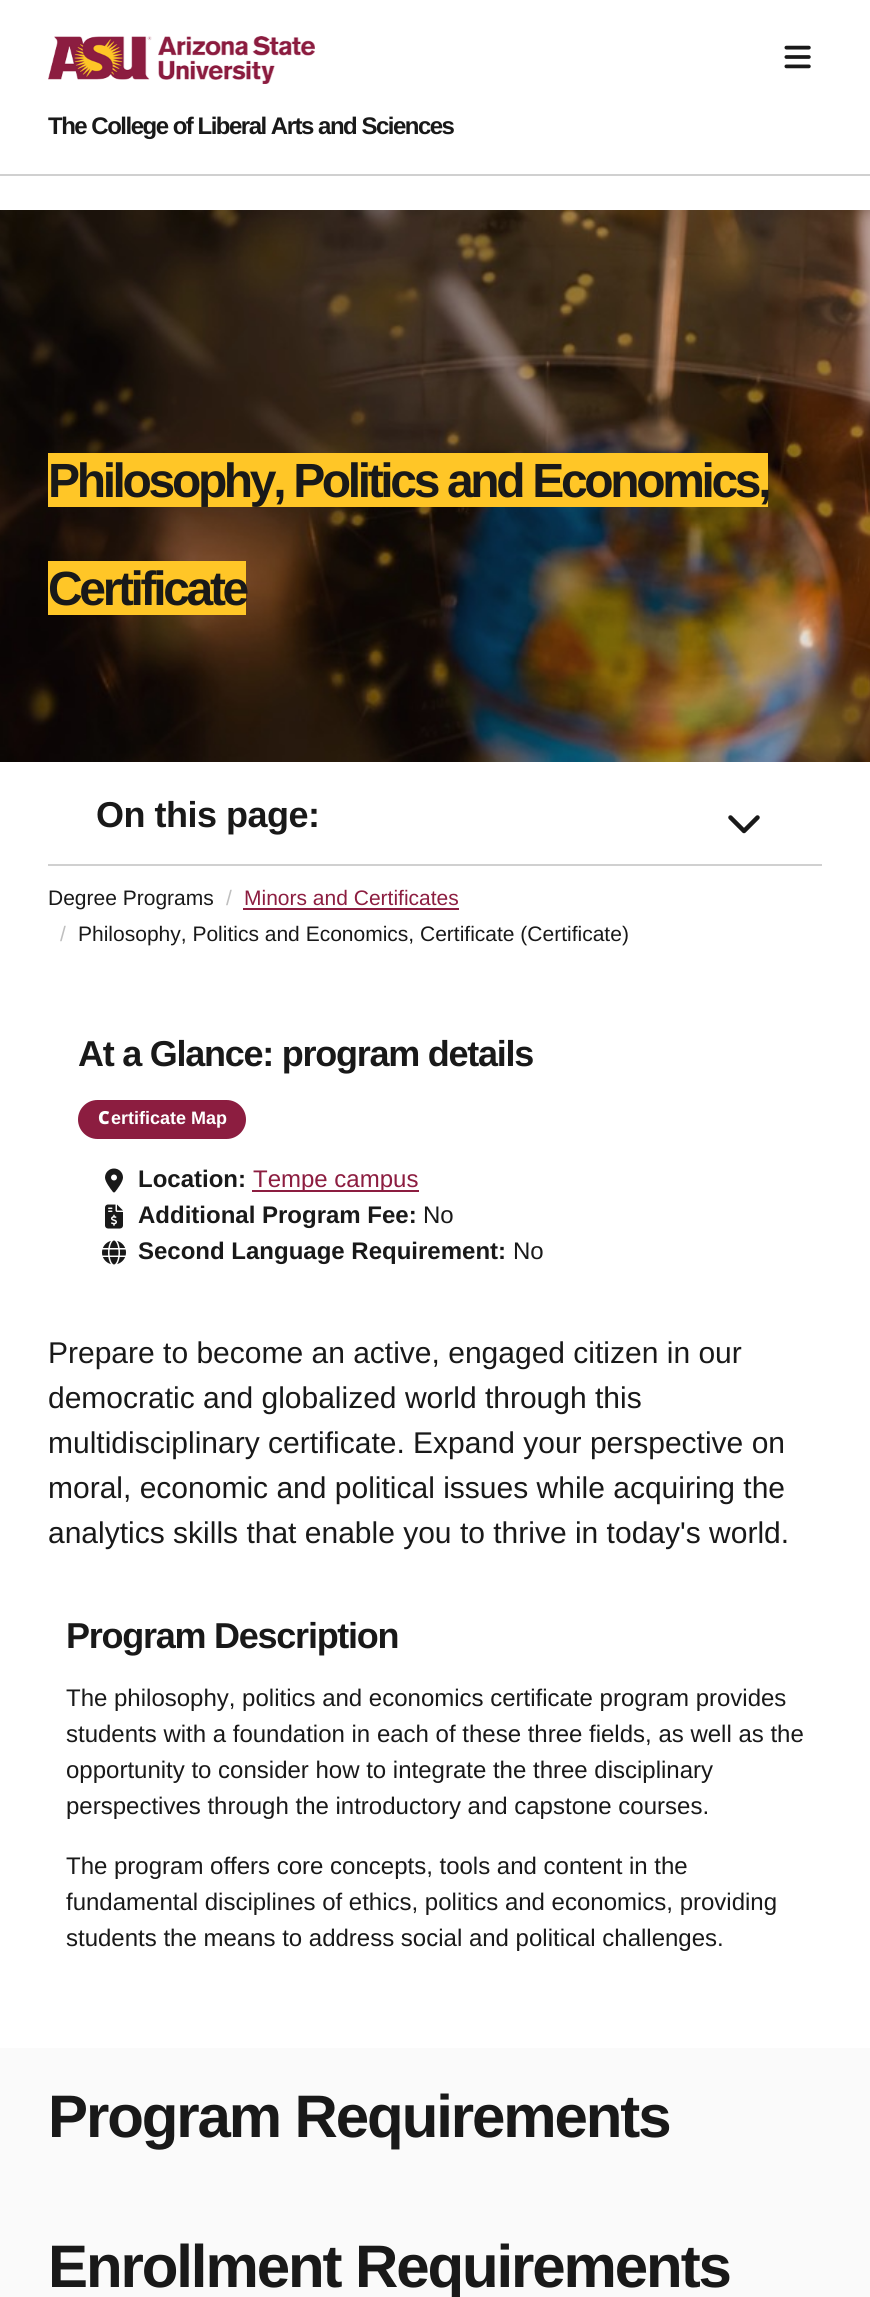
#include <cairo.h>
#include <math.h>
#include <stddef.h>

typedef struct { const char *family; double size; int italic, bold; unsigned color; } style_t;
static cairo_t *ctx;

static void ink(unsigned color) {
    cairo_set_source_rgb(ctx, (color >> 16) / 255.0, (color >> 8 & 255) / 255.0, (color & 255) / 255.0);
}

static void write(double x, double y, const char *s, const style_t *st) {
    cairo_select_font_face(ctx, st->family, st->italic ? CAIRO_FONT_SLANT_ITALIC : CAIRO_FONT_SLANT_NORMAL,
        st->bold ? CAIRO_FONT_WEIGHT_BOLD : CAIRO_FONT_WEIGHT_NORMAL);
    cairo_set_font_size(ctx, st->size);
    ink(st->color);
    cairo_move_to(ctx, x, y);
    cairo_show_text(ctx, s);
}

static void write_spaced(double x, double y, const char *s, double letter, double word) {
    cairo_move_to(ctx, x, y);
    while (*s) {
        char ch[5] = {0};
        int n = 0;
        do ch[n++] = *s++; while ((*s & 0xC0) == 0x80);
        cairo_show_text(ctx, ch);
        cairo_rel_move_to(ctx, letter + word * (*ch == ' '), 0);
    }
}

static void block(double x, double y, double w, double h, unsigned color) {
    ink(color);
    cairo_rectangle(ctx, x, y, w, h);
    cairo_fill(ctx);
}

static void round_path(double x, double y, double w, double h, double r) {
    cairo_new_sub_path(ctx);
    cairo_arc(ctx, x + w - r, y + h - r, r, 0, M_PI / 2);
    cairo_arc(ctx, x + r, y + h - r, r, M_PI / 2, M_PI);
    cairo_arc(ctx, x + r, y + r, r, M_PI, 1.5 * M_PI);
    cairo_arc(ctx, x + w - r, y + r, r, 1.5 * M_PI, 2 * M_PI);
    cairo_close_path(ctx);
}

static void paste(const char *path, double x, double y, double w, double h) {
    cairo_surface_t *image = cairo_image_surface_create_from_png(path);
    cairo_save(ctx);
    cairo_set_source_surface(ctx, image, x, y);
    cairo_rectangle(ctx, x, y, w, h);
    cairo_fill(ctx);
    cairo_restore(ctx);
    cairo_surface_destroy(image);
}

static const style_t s1 = {"Liberation Sans", 21, 0, 0, 0x191919};
static const style_t s2 = {"Liberation Sans", 21, 0, 0, 0xbfbfbf};
static const style_t s3 = {"Liberation Sans", 21, 0, 0, 0x8c1d40};
static const style_t s4 = {"Noto Sans Black", 18, 0, 0, 0xffffff};
static const style_t s5 = {"Liberation Sans", 18, 0, 1, 0xffffff};
static const style_t s6 = {"Liberation Sans", 24, 0, 1, 0x191919};
static const style_t s7 = {"Liberation Sans", 24, 0, 0, 0x8c1d40};
static const style_t s8 = {"Liberation Sans", 24, 0, 0, 0x191919};
static const style_t s9 = {"Liberation Sans", 30, 0, 0, 0x191919};

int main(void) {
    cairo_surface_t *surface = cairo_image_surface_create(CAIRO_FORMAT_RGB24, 870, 2297);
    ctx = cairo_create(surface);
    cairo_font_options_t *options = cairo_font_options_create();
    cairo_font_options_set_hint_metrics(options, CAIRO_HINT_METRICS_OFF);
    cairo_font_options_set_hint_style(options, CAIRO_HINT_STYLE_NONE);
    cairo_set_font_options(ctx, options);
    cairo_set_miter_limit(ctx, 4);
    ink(0xffffff);
    cairo_paint(ctx);
    block(0, 174, 870, 2, 0xd0d0d0);
    paste("pic1.png", 48, 36, 267, 48);
    paste("pic2.png", 784, 45, 27, 24);
    cairo_select_font_face(ctx, "Liberation Sans", CAIRO_FONT_SLANT_NORMAL, CAIRO_FONT_WEIGHT_BOLD);
    cairo_set_font_size(ctx, 24);
    ink(0x191919);
    write_spaced(48, 134, "The College of Liberal Arts and Sciences", -1.5, 0);
    paste("pic3.png", 0, 210, 870, 552);
    block(48, 453, 720, 54, 0xffc627);
    cairo_set_font_size(ctx, 48);
    ink(0x191919);
    write_spaced(48, 497, "Philosophy, Politics and Economics,", -3.35, 0);
    block(48, 561, 198, 54, 0xffc627);
    ink(0x191919);
    write_spaced(48, 605, "Certificate", -3.35, 0);
    block(48, 864, 774, 2, 0xd0d0d0);
    cairo_set_font_size(ctx, 36);
    ink(0x191919);
    write_spaced(96, 827, "On this page:", -0.5, 0);
    paste("pic4.png", 728, 815, 32, 19);
    write(48, 905, "Degree Programs", &s1);
    write(226, 905, "/", &s2);
    write(244, 905, "Minors and Certificates", &s3);
    block(243, 908, 216, 2, 0x8c1d40);
    write(60, 941, "/", &s2);
    write(78, 941, "Philosophy, Politics and Economics, Certificate (Certificate)", &s1);
    cairo_select_font_face(ctx, "Liberation Sans", CAIRO_FONT_SLANT_NORMAL, CAIRO_FONT_WEIGHT_BOLD);
    cairo_set_font_size(ctx, 36);
    write_spaced(78, 1066, "At a Glance: program details", -1.25, 0);
    ink(0x8c1d40);
    round_path(79, 1101, 166, 37, 18.5);
    cairo_fill_preserve(ctx);
    cairo_stroke(ctx);
    write(98, 1124, "C", &s4);
    write(111, 1124, "ertificate Map", &s5);
    paste("pic5.png", 105, 1168, 18, 25);
    write(138, 1187, "Location:", &s6);
    block(252, 1190, 167, 2, 0x8c1d40);
    write(253, 1187, "Tempe campus", &s7);
    paste("pic6.png", 105, 1204, 18, 25);
    write(138, 1223, "Additional Program Fee:", &s6);
    write(423, 1223, "No", &s8);
    paste("pic7.png", 102, 1240, 24, 25);
    write(138, 1259, "Second Language Requirement:", &s6);
    write(513, 1259, "No", &s8);
    write(48, 1363, "Prepare to become an active, engaged citizen in our", &s9);
    write(48, 1408, "democratic and globalized world through this", &s9);
    write(48, 1453, "multidisciplinary certificate. Expand your perspective on", &s9);
    write(48, 1498, "moral, economic and political issues while acquiring the", &s9);
    write(48, 1543, "analytics skills that enable you to thrive in today's world.", &s9);
    cairo_select_font_face(ctx, "Liberation Sans", CAIRO_FONT_SLANT_NORMAL, CAIRO_FONT_WEIGHT_BOLD);
    cairo_set_font_size(ctx, 36);
    write_spaced(66, 1648, "Program Description", -1.25, 0);
    write(66, 1706, "The philosophy, politics and economics certificate program provides", &s8);
    write(66, 1742, "students with a foundation in each of these three fields, as well as the", &s8);
    write(66, 1778, "opportunity to consider how to integrate the three disciplinary", &s8);
    write(66, 1814, "perspectives through the introductory and capstone courses.", &s8);
    write(66, 1874, "The program offers core concepts, tools and content in the", &s8);
    write(66, 1910, "fundamental disciplines of ethics, politics and economics, providing", &s8);
    write(66, 1946, "students the means to address social and political challenges.", &s8);
    block(0, 2048, 870, 249, 0xfafafa);
    cairo_select_font_face(ctx, "Liberation Sans", CAIRO_FONT_SLANT_NORMAL, CAIRO_FONT_WEIGHT_BOLD);
    cairo_set_font_size(ctx, 60);
    ink(0x191919);
    write_spaced(48, 2137, "Program Requirements", -2.1, 0);
    write_spaced(48, 2287, "Enrollment Requirements", -2.1, 0);
    cairo_surface_write_to_png(surface, "screenshot.png");
    cairo_font_options_destroy(options);
    cairo_destroy(ctx);
    cairo_surface_destroy(surface);
    return 0;
}
